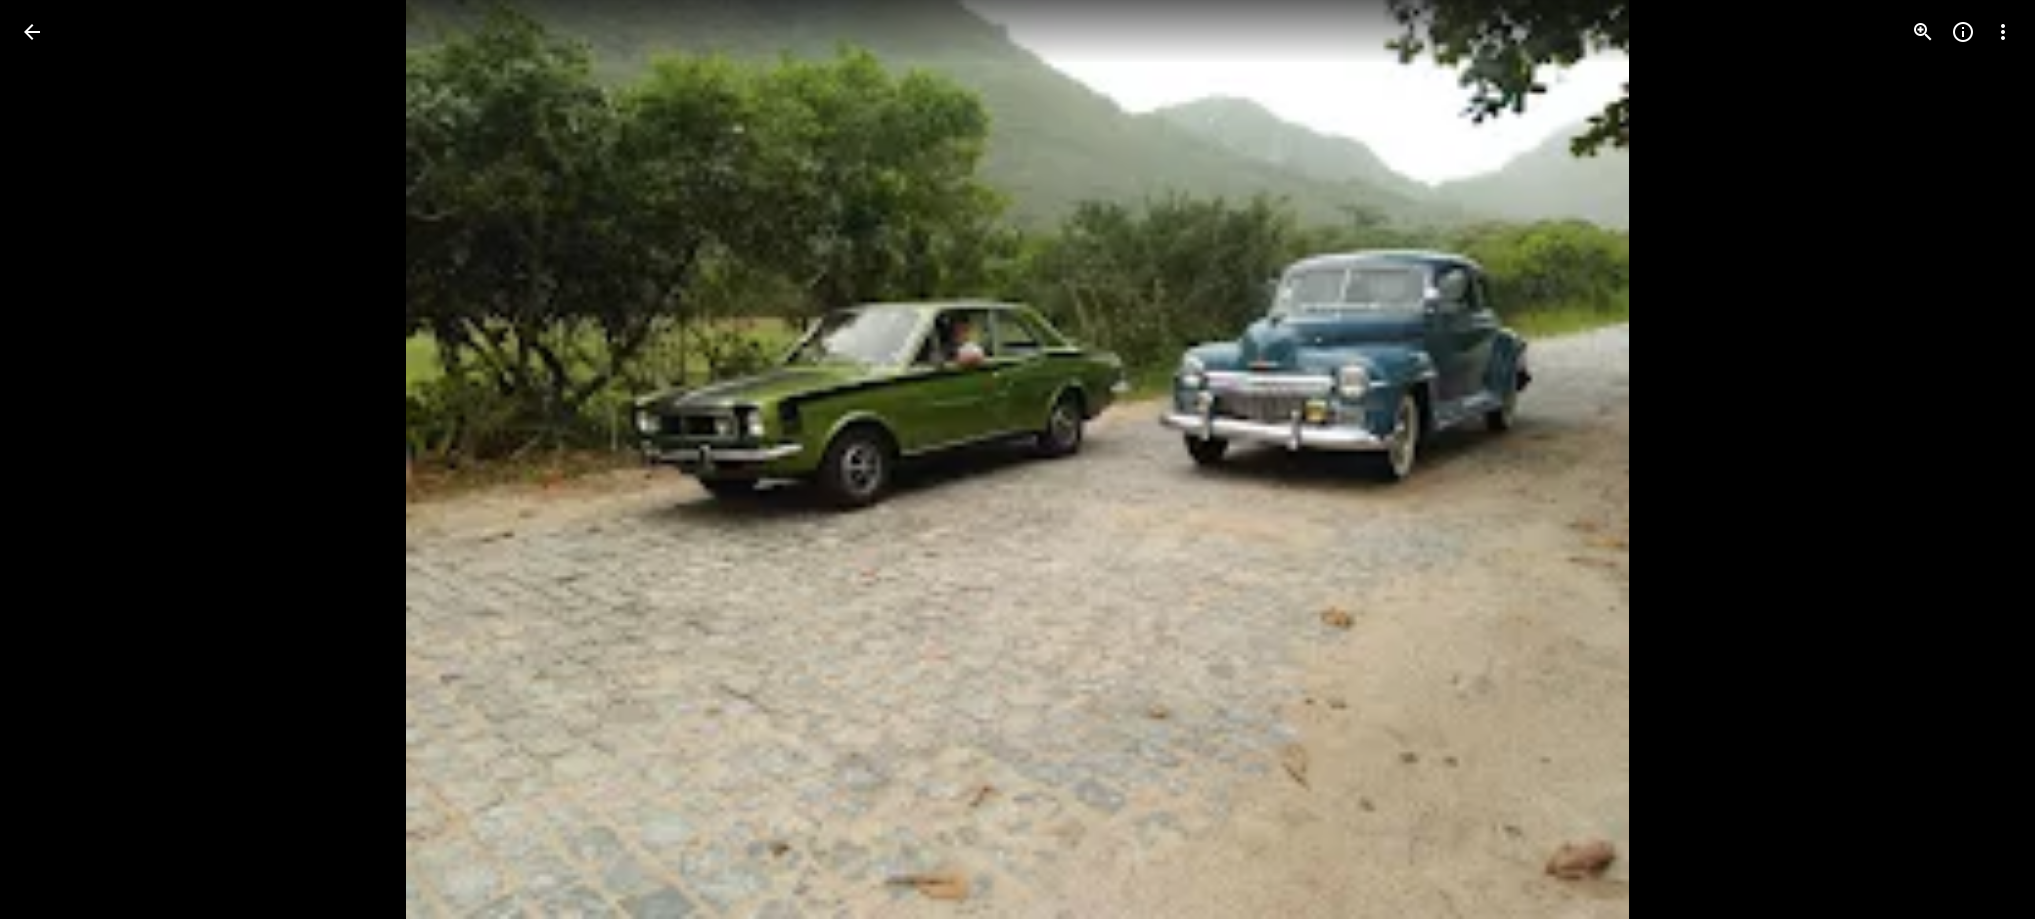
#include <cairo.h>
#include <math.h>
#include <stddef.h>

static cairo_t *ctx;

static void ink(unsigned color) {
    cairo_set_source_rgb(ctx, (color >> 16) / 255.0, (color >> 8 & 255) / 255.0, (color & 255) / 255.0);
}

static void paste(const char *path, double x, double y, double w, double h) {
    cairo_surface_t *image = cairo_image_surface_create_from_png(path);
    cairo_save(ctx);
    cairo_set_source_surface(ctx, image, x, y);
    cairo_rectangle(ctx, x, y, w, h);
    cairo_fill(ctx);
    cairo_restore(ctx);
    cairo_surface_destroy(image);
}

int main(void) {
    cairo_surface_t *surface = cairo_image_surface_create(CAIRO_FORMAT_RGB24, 2035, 919);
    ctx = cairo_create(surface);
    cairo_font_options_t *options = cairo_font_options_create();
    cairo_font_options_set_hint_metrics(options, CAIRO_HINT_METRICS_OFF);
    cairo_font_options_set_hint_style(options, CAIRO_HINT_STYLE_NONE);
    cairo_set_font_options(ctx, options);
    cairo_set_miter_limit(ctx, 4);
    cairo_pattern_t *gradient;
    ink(0x000000);
    cairo_paint(ctx);
    paste("pic5.png", 406, 0, 1223, 919);
    gradient = cairo_pattern_create_linear(1018, 0, 1018, 64);
    cairo_pattern_add_color_stop_rgba(gradient, 0, 0, 0, 0, 0.6);
    cairo_pattern_add_color_stop_rgba(gradient, 1, 0, 0, 0, 0);
    cairo_set_source(ctx, gradient);
    cairo_pattern_destroy(gradient);
    cairo_rectangle(ctx, 406, 0, 1223, 62);
    cairo_fill(ctx);
    paste("pic1.png", 24, 24, 16, 16);
    paste("pic2.png", 1914, 23, 18, 18);
    paste("pic3.png", 1953, 22, 20, 20);
    paste("pic4.png", 2001, 24, 4, 16);
    cairo_surface_write_to_png(surface, "screenshot.png");
    cairo_font_options_destroy(options);
    cairo_destroy(ctx);
    cairo_surface_destroy(surface);
    return 0;
}
